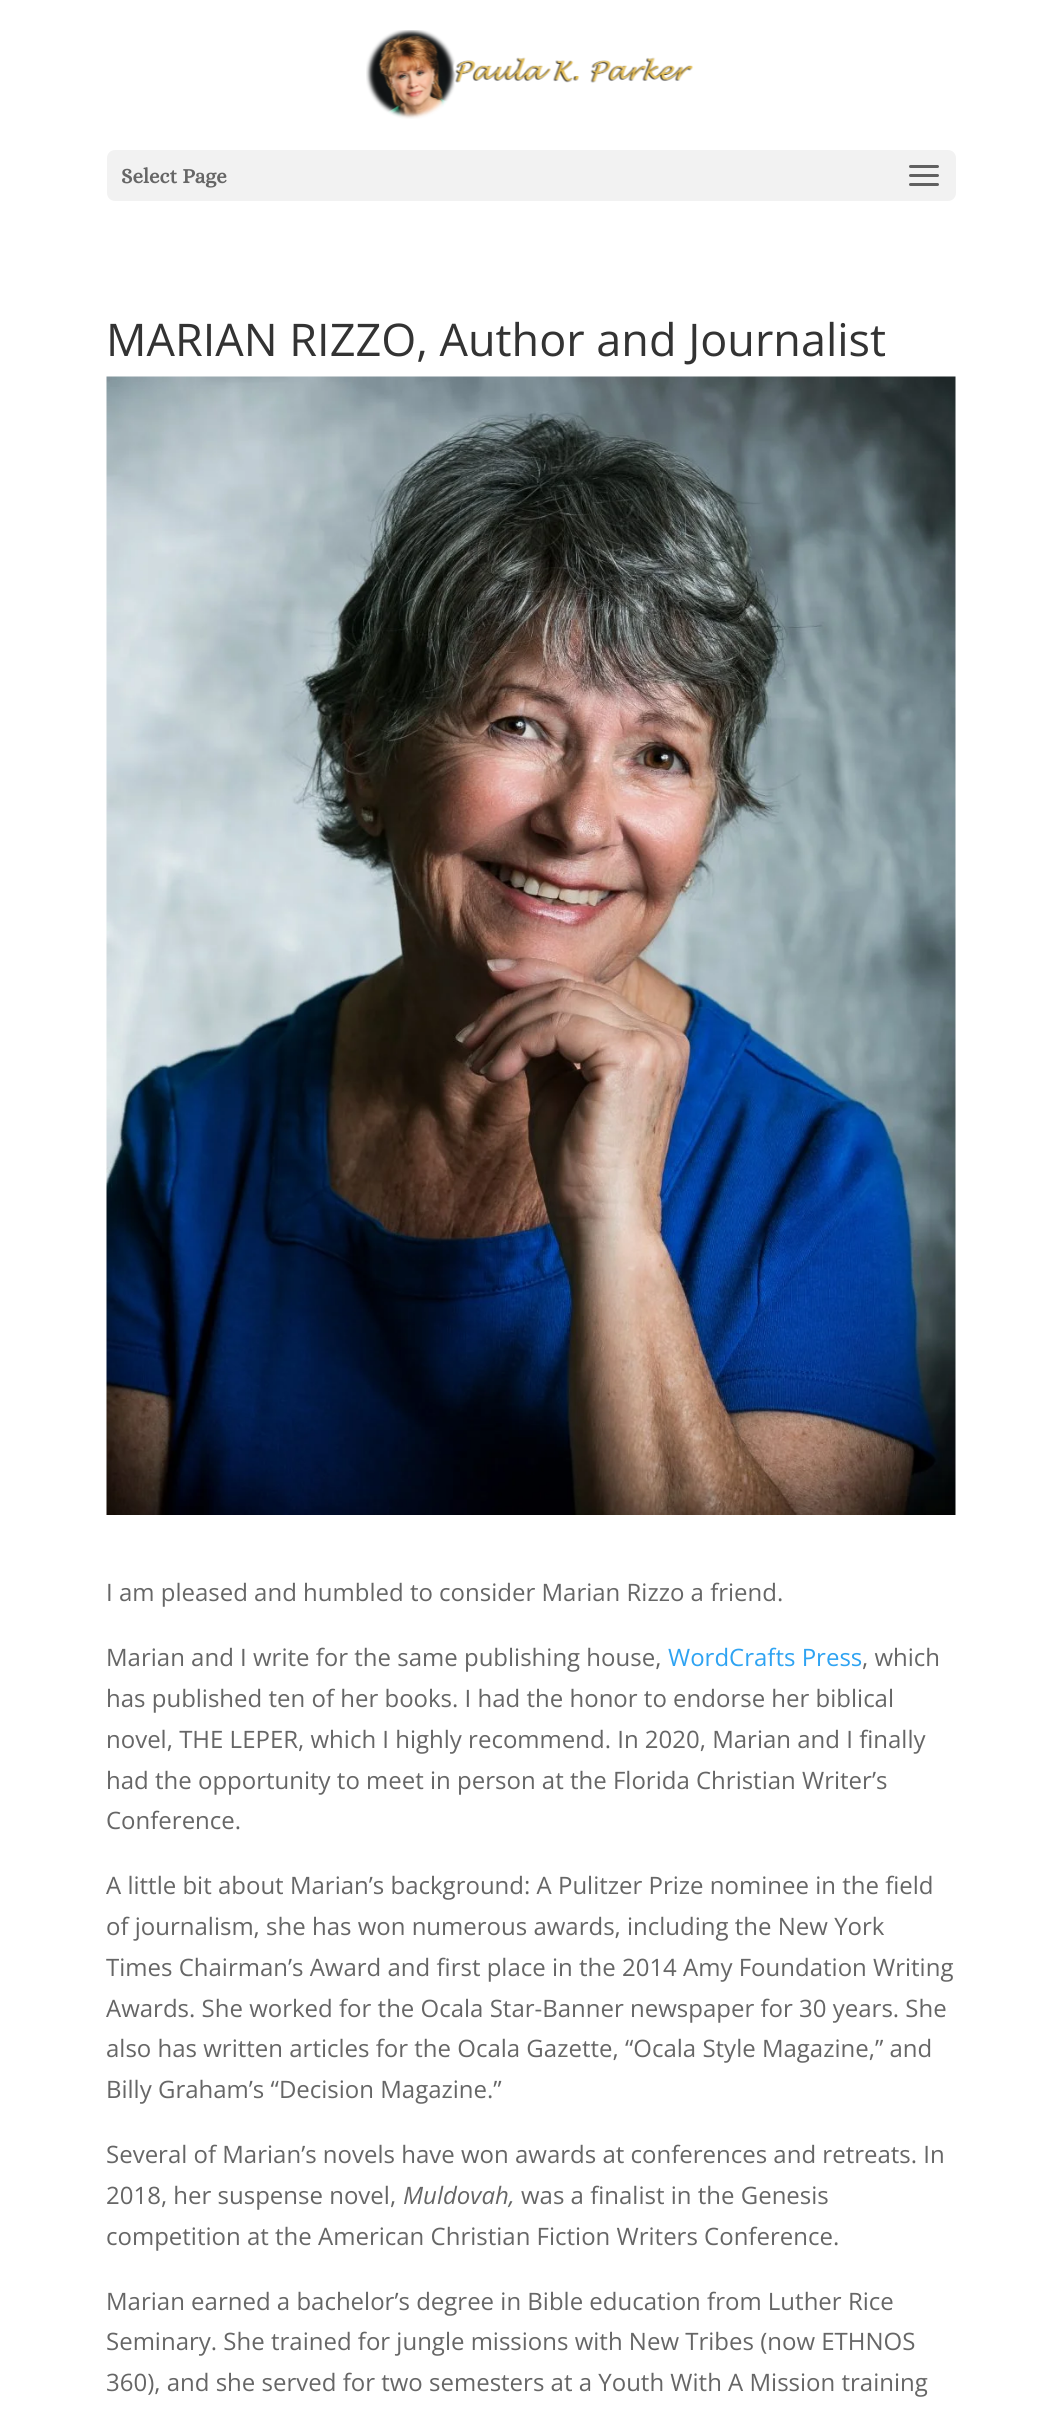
#include <cairo.h>
#include <math.h>
#include <stddef.h>

typedef struct { const char *family; double size; int italic, bold; unsigned color; } style_t;
static cairo_t *ctx;

static void ink(unsigned color) {
    cairo_set_source_rgb(ctx, (color >> 16) / 255.0, (color >> 8 & 255) / 255.0, (color & 255) / 255.0);
}

static void write(double x, double y, const char *s, const style_t *st) {
    cairo_select_font_face(ctx, st->family, st->italic ? CAIRO_FONT_SLANT_ITALIC : CAIRO_FONT_SLANT_NORMAL,
        st->bold ? CAIRO_FONT_WEIGHT_BOLD : CAIRO_FONT_WEIGHT_NORMAL);
    cairo_set_font_size(ctx, st->size);
    ink(st->color);
    cairo_move_to(ctx, x, y);
    cairo_show_text(ctx, s);
}

static void round_path(double x, double y, double w, double h, double r) {
    cairo_new_sub_path(ctx);
    cairo_arc(ctx, x + w - r, y + h - r, r, 0, M_PI / 2);
    cairo_arc(ctx, x + r, y + h - r, r, M_PI / 2, M_PI);
    cairo_arc(ctx, x + r, y + r, r, M_PI, 1.5 * M_PI);
    cairo_arc(ctx, x + w - r, y + r, r, 1.5 * M_PI, 2 * M_PI);
    cairo_close_path(ctx);
}

static void paste(const char *path, double x, double y, double w, double h) {
    cairo_surface_t *image = cairo_image_surface_create_from_png(path);
    cairo_save(ctx);
    cairo_set_source_surface(ctx, image, x, y);
    cairo_rectangle(ctx, x, y, w, h);
    cairo_fill(ctx);
    cairo_restore(ctx);
    cairo_surface_destroy(image);
}

static const style_t s1 = {"Alice", 21, 0, 1, 0x666666};
static const style_t s2 = {"Open Sans", 45, 0, 0, 0x333333};
static const style_t s3 = {"Open Sans", 24, 0, 0, 0x666666};
static const style_t s4 = {"Open Sans", 24, 0, 0, 0x2ea3f2};
static const style_t s5 = {"Open Sans", 24, 1, 0, 0x666666};

int main(void) {
    cairo_surface_t *surface = cairo_image_surface_create(CAIRO_FORMAT_RGB24, 1062, 2414);
    ctx = cairo_create(surface);
    cairo_font_options_t *options = cairo_font_options_create();
    cairo_font_options_set_hint_metrics(options, CAIRO_HINT_METRICS_OFF);
    cairo_font_options_set_hint_style(options, CAIRO_HINT_STYLE_NONE);
    cairo_set_font_options(ctx, options);
    cairo_set_miter_limit(ctx, 4);
    ink(0xffffff);
    cairo_paint(ctx);
    paste("pic1.png", 366, 30, 328, 89);
    ink(0xf2f2f2);
    round_path(107, 150, 849, 51, 8);
    cairo_fill(ctx);
    write(121, 183, "Select Page", &s1);
    paste("pic2.png", 909, 165, 30, 21);
    write(106, 356, "MARIAN RIZZO, Author and Journalist", &s2);
    paste("pic3.png", 106, 376, 850, 1139);
    write(106, 1601, "I am pleased and humbled to consider Marian Rizzo a friend.", &s3);
    write(106, 1666, "Marian and I write for the same publishing house,", &s3);
    write(668, 1666, "WordCrafts Press", &s4);
    write(862, 1666, ", which", &s3);
    write(106, 1707, "has published ten of her books. I had the honor to endorse her biblical", &s3);
    write(106, 1748, "novel, THE LEPER, which I highly recommend. In 2020, Marian and I finally", &s3);
    write(106, 1789, "had the opportunity to meet in person at the Florida Christian Writer’s", &s3);
    write(106, 1829, "Conference.", &s3);
    write(106, 1894, "A little bit about Marian’s background: A Pulitzer Prize nominee in the field", &s3);
    write(106, 1935, "of journalism, she has won numerous awards, including the New York", &s3);
    write(106, 1976, "Times Chairman’s Award and first place in the 2014 Amy Foundation Writing", &s3);
    write(106, 2017, "Awards. She worked for the Ocala Star-Banner newspaper for 30 years. She", &s3);
    write(106, 2057, "also has written articles for the Ocala Gazette, “Ocala Style Magazine,” and", &s3);
    write(106, 2098, "Billy Graham’s “Decision Magazine.”", &s3);
    write(106, 2163, "Several of Marian’s novels have won awards at conferences and retreats. In", &s3);
    write(106, 2204, "2018, her suspense novel,", &s3);
    write(403, 2204, "Muldovah,", &s5);
    write(521, 2204, "was a finalist in the Genesis", &s3);
    write(106, 2245, "competition at the American Christian Fiction Writers Conference.", &s3);
    write(106, 2310, "Marian earned a bachelor’s degree in Bible education from Luther Rice", &s3);
    write(106, 2350, "Seminary. She trained for jungle missions with New Tribes (now ETHNOS", &s3);
    write(106, 2391, "360), and she served for two semesters at a Youth With A Mission training", &s3);
    cairo_surface_write_to_png(surface, "screenshot.png");
    cairo_font_options_destroy(options);
    cairo_destroy(ctx);
    cairo_surface_destroy(surface);
    return 0;
}
